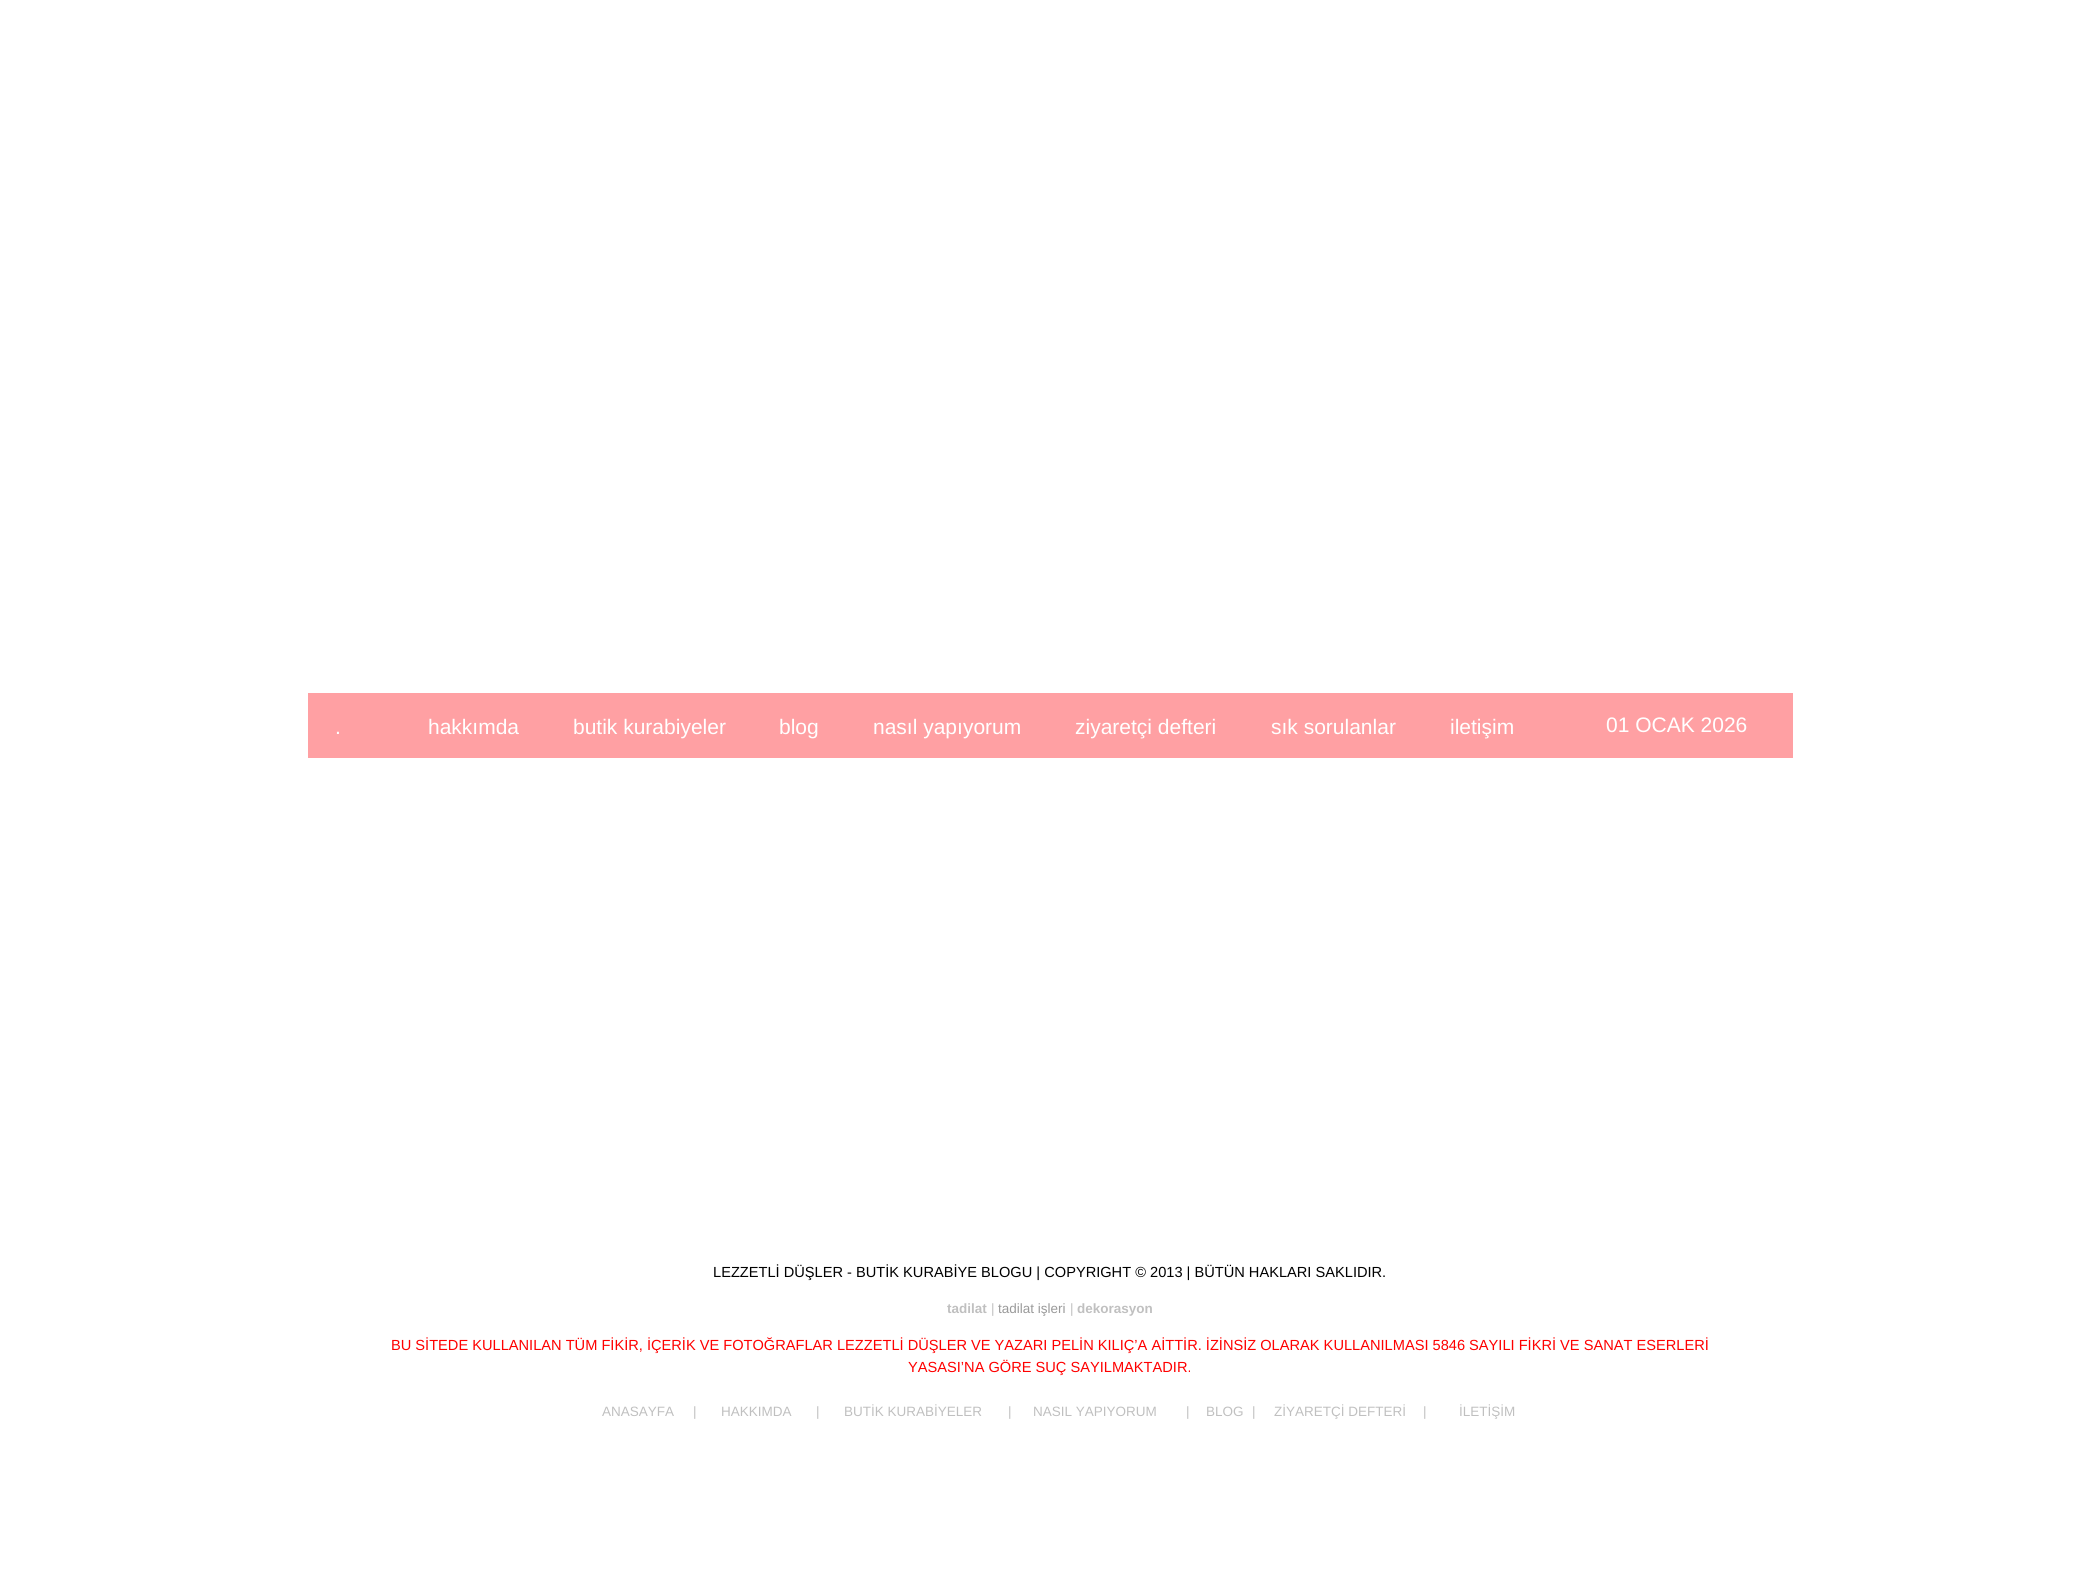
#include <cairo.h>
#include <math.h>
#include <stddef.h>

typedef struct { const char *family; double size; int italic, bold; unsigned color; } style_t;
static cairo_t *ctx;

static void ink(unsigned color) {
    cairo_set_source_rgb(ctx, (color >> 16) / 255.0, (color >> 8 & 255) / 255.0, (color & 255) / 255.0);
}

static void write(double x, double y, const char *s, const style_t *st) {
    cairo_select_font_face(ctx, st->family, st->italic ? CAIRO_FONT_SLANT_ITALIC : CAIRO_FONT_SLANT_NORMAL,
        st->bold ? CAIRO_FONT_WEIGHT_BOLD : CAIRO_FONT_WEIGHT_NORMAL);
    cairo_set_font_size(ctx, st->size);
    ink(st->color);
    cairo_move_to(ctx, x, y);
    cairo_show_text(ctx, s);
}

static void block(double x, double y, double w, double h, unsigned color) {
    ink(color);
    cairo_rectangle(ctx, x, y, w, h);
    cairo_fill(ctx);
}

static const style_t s1 = {"Liberation Sans", 21, 0, 0, 0xffffff};
static const style_t s2 = {"Liberation Sans", 14.62, 0, 0, 0x000000};
static const style_t s3 = {"Liberation Sans", 13.5, 0, 1, 0xc0c0c0};
static const style_t s4 = {"Liberation Sans", 13.5, 0, 0, 0xc0c0c0};
static const style_t s5 = {"Liberation Sans", 13.5, 0, 0, 0x999999};
static const style_t s6 = {"Liberation Sans", 14.62, 0, 0, 0xff0000};

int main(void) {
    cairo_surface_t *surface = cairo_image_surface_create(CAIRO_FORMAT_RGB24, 2099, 1595);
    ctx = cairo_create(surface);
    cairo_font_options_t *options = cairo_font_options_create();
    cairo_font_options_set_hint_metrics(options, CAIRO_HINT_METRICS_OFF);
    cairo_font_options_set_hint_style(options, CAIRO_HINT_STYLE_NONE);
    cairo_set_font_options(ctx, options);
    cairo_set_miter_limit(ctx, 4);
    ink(0xffffff);
    cairo_paint(ctx);
    block(308, 693, 1485, 65, 0xffa0a3);
    write(335, 734, ".", &s1);
    write(428, 734, "hakkımda", &s1);
    write(573, 734, "butik kurabiyeler", &s1);
    write(779, 734, "blog", &s1);
    write(873, 734, "nasıl yapıyorum", &s1);
    write(1075, 734, "ziyaretçi defteri", &s1);
    write(1271, 734, "sık sorulanlar", &s1);
    write(1450, 734, "iletişim", &s1);
    write(1606, 732, "01 OCAK 2026", &s1);
    write(713, 1277, "LEZZETLİ DÜŞLER - BUTİK KURABİYE BLOGU | COPYRIGHT © 2013 | BÜTÜN HAKLARI SAKLIDIR.", &s2);
    write(947, 1313, "tadilat", &s3);
    write(991, 1313, "|", &s4);
    write(998, 1313, "tadilat işleri", &s5);
    write(1070, 1313, "|", &s4);
    write(1077, 1313, "dekorasyon", &s3);
    write(391, 1350, "BU SİTEDE KULLANILAN TÜM FİKİR, İÇERİK VE FOTOĞRAFLAR LEZZETLİ DÜŞLER VE YAZARI PELİN KILIÇ’A AİTTİR. İZİNSİZ OLARAK KULLANILMASI 5846 SAYILI FİKRİ VE SANAT ESERLERİ", &s6);
    write(908, 1372, "YASASI’NA GÖRE SUÇ SAYILMAKTADIR.", &s6);
    write(602, 1416, "ANASAYFA", &s4);
    write(693, 1416, "|", &s4);
    write(721, 1416, "HAKKIMDA", &s4);
    write(816, 1416, "|", &s4);
    write(844, 1416, "BUTİK KURABİYELER", &s4);
    write(1008, 1416, "|", &s4);
    write(1033, 1416, "NASIL YAPIYORUM", &s4);
    write(1186, 1416, "|", &s4);
    write(1206, 1416, "BLOG", &s4);
    write(1252, 1416, "|", &s4);
    write(1274, 1416, "ZİYARETÇİ DEFTERİ", &s4);
    write(1423, 1416, "|", &s4);
    write(1459, 1416, "İLETİŞİM", &s4);
    cairo_surface_write_to_png(surface, "screenshot.png");
    cairo_font_options_destroy(options);
    cairo_destroy(ctx);
    cairo_surface_destroy(surface);
    return 0;
}
